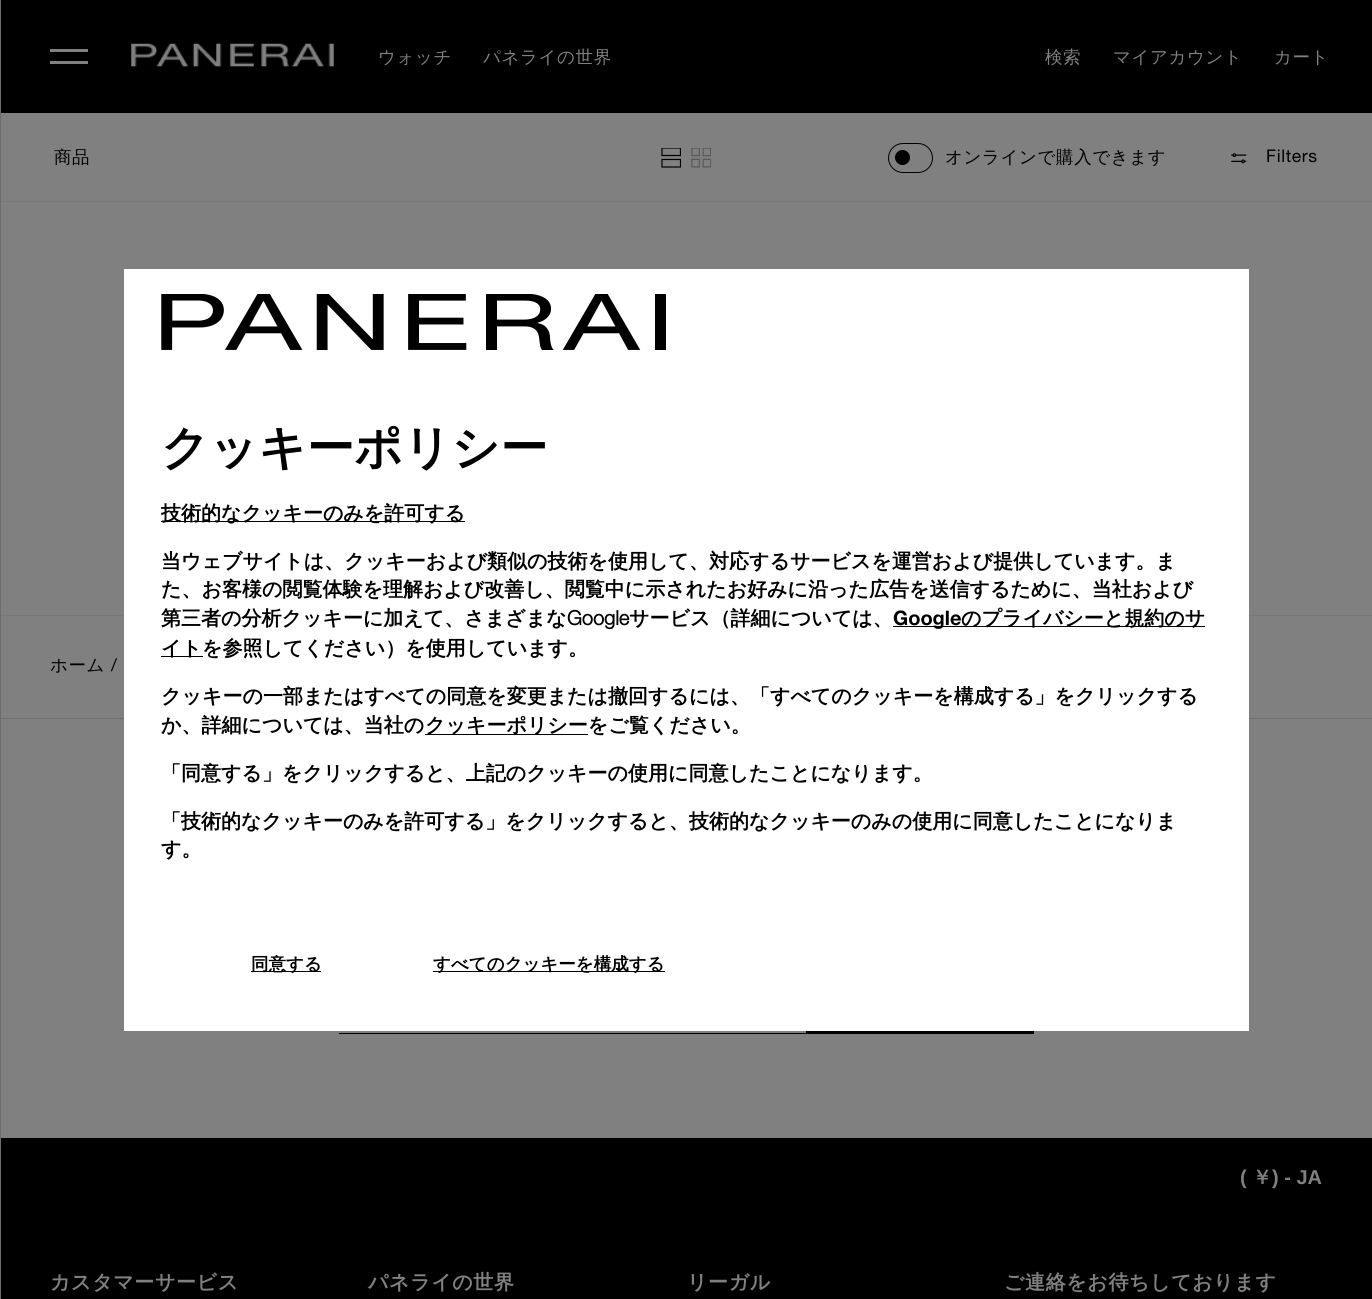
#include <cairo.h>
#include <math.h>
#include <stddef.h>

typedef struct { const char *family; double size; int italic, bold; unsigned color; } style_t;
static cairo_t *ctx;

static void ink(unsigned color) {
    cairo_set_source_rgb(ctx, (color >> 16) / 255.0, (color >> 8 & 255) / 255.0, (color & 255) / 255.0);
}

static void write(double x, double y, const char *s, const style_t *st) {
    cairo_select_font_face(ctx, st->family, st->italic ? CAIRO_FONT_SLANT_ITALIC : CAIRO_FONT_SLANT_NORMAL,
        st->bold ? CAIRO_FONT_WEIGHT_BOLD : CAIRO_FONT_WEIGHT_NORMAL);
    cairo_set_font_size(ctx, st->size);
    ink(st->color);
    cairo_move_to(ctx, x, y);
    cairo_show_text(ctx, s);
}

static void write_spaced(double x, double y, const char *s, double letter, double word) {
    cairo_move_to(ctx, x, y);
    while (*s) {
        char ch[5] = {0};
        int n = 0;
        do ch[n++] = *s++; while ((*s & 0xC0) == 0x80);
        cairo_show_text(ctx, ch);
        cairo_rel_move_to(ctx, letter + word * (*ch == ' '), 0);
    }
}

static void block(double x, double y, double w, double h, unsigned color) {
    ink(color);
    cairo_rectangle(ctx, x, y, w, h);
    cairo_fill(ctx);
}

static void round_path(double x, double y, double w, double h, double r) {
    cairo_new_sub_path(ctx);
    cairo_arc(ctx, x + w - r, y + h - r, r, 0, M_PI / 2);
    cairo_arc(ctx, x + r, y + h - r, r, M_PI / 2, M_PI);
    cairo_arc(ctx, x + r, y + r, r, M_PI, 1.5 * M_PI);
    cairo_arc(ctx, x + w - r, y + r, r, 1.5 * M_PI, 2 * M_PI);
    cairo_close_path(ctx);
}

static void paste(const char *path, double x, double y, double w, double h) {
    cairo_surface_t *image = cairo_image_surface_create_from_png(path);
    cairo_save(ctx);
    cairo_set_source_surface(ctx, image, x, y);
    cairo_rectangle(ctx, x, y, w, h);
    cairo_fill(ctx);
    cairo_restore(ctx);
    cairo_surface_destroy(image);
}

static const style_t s1 = {"WenQuanYi Zen Hei", 47.5, 0, 1, 0x000000};
static const style_t s2 = {"WenQuanYi Zen Hei", 20, 0, 1, 0x000000};
static const style_t s3 = {"Helvetica Neue", 20, 0, 1, 0x000000};
static const style_t s4 = {"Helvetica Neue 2", 20, 0, 1, 0x000000};
static const style_t s5 = {"WenQuanYi Zen Hei", 17.5, 0, 1, 0x000000};
static const style_t s6 = {"Liberation Sans", 20, 0, 1, 0x808080};
static const style_t s7 = {"WenQuanYi Zen Hei", 20, 0, 1, 0x808080};

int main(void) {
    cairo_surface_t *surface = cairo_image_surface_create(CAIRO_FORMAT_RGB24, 1372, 1299);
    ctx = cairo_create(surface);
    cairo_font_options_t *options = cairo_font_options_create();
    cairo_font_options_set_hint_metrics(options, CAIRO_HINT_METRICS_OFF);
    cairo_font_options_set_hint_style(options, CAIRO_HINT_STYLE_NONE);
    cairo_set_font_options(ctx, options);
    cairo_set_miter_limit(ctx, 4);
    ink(0x000000);
    cairo_paint(ctx);
    block(1, 113, 1371, 605, 0x808080);
    block(0, 201, 1372, 1, 0x797979);
    block(0, 615, 1372, 1, 0x797979);
    block(0, 718, 1372, 1, 0x707070);
    block(0, 0, 1, 1299, 0x6d6d6d);
    block(50, 49, 38, 3, 0x808080);
    block(50, 61, 38, 3, 0x808080);
    paste("pic1.png", 131, 43, 203, 24);
    cairo_select_font_face(ctx, "WenQuanYi Zen Hei Medium", CAIRO_FONT_SLANT_NORMAL, CAIRO_FONT_WEIGHT_NORMAL);
    cairo_set_font_size(ctx, 17.5);
    write_spaced(378, 63, "ウォッチ", 0.6, 0);
    write_spaced(483, 63, "パネライの世界", 0.6, 0);
    write_spaced(1045, 63, "検索", 0.6, 0);
    write_spaced(1113, 63, "マイアカウント", 0.6, 0);
    write_spaced(1274, 63, "カート", 0.6, 0);
    ink(0x000000);
    write_spaced(54, 163, "商品", 0.6, 0);
    cairo_save(ctx);
    cairo_rectangle(ctx, 661, 148, 20, 20);
    cairo_clip(ctx);
    cairo_new_path(ctx);
    cairo_move_to(ctx, 662, 148);
    cairo_line_to(ctx, 680.5, 148);
    cairo_line_to(ctx, 680.5, 155.5);
    cairo_line_to(ctx, 662, 155.5);
    cairo_close_path(ctx);
    cairo_move_to(ctx, 662, 159.5);
    cairo_line_to(ctx, 680.5, 159.5);
    cairo_line_to(ctx, 680.5, 167);
    cairo_line_to(ctx, 662, 167);
    cairo_close_path(ctx);
    cairo_set_line_width(ctx, 1.2);
    cairo_stroke(ctx);
    cairo_restore(ctx);
    paste("pic2.png", 691, 148, 20, 20);
    round_path(888.5, 143.5, 44, 29, 14.5);
    cairo_set_line_width(ctx, 1);
    cairo_stroke(ctx);
    cairo_arc(ctx, 902.5, 157.5, 7.5, 0, 2 * M_PI);
    cairo_fill(ctx);
    write_spaced(945, 163, "オンラインで購入できます", 0.6, 0);
    paste("pic3.png", 1231, 153, 16, 11);
    cairo_select_font_face(ctx, "Helvetica Neue", CAIRO_FONT_SLANT_NORMAL, CAIRO_FONT_WEIGHT_NORMAL);
    write_spaced(1266, 162, "Filters", 0.6, 0);
    cairo_select_font_face(ctx, "WenQuanYi Zen Hei Medium", CAIRO_FONT_SLANT_NORMAL, CAIRO_FONT_WEIGHT_NORMAL);
    write_spaced(50, 671, "ホーム", 0.6, 0);
    cairo_select_font_face(ctx, "Helvetica Neue", CAIRO_FONT_SLANT_NORMAL, CAIRO_FONT_WEIGHT_NORMAL);
    write_spaced(111, 671, "/", 0.6, 0);
    block(1, 719, 1371, 419, 0x808080);
    block(124, 269, 1125, 762, 0xffffff);
    paste("pic4.png", 161, 294, 505, 56);
    write(161, 464, "クッキーポリシー", &s1);
    block(161, 521, 304, 1, 0x000000);
    write(161, 520, "技術的なクッキーのみを許可する", &s2);
    write(161, 568, "当ウェブサイトは、クッキーおよび類似の技術を使用して、対応するサービスを運営および提供しています。ま", &s2);
    write(161, 596, "た、お客様の閲覧体験を理解および改善し、閲覧中に示されたお好みに沿った広告を送信するために、当社および", &s2);
    write(161, 625, "第三者の分析クッキーに加えて、さまざまな", &s2);
    write(567, 625, "Google", &s3);
    write(629, 625, "サービス（詳細については、", &s2);
    block(893, 626, 312, 1, 0x000000);
    write(893, 625, "Google", &s4);
    write(961, 625, "のプライバシーと規約のサ", &s2);
    block(161, 656, 42, 1, 0x000000);
    write(161, 655, "イトを参照してください）を使用しています。", &s2);
    write(161, 703, "クッキーの一部またはすべての同意を変更または撤回するには、「すべてのクッキーを構成する」をクリックする", &s2);
    write(161, 732, "か、詳細については、当社の", &s2);
    block(425, 734, 163, 1, 0x000000);
    write(425, 732, "クッキーポリシーをご覧ください。", &s2);
    write(161, 780, "「同意する」をクリックすると、上記のクッキーの使用に同意したことになります。", &s2);
    write(161, 828, "「技術的なクッキーのみを許可する」をクリックすると、技術的なクッキーのみの使用に同意したことになりま", &s2);
    write(161, 856, "す。", &s2);
    block(251, 971, 70, 1, 0x000000);
    write(251, 970, "同意する", &s5);
    block(433, 971, 232, 1, 0x000000);
    write(433, 970, "すべてのクッキーを構成する", &s5);
    block(339, 1033, 467, 1, 0x000000);
    block(806, 1031, 228, 3, 0x000000);
    write(1240, 1184, "(", &s6);
    write(1252, 1184, "￥", &s7);
    write(1272, 1184, ") - JA", &s6);
    cairo_select_font_face(ctx, "WenQuanYi Zen Hei", CAIRO_FONT_SLANT_NORMAL, CAIRO_FONT_WEIGHT_BOLD);
    write_spaced(50, 1289, "カスタマーサービス", 0.6, 0);
    write_spaced(368, 1289, "パネライの世界", 0.6, 0);
    write_spaced(687, 1289, "リーガル", 0.6, 0);
    write_spaced(1004, 1289, "ご連絡をお待ちしております", 0.6, 0);
    cairo_surface_write_to_png(surface, "screenshot.png");
    cairo_font_options_destroy(options);
    cairo_destroy(ctx);
    cairo_surface_destroy(surface);
    return 0;
}
